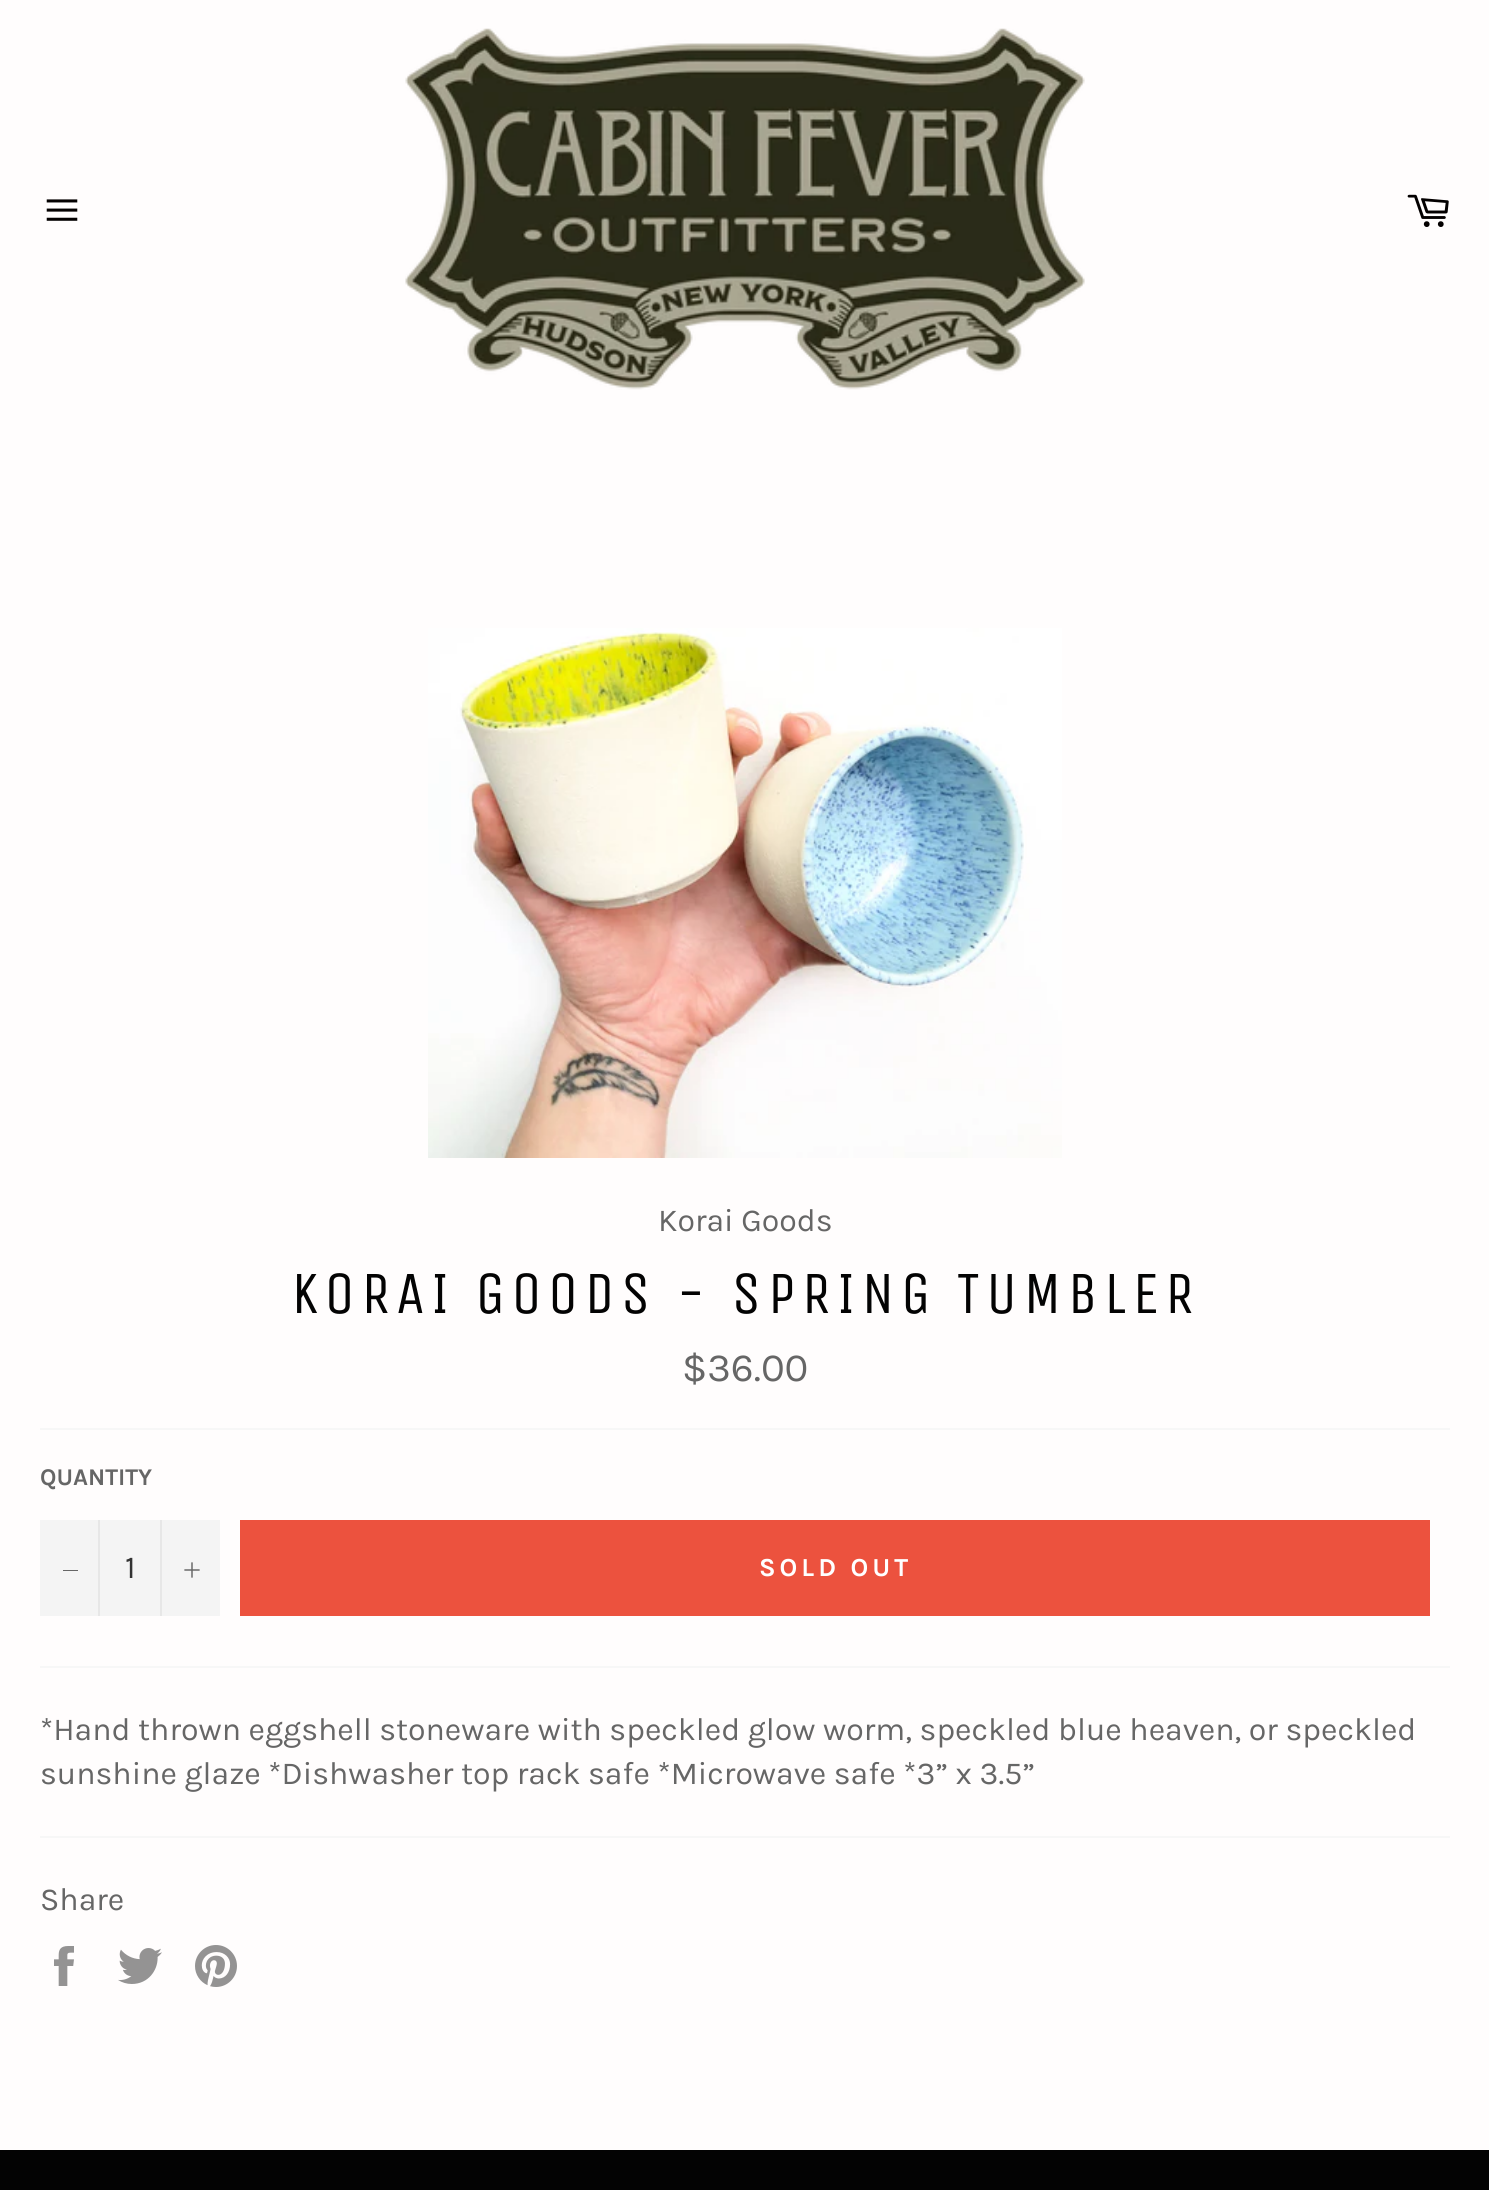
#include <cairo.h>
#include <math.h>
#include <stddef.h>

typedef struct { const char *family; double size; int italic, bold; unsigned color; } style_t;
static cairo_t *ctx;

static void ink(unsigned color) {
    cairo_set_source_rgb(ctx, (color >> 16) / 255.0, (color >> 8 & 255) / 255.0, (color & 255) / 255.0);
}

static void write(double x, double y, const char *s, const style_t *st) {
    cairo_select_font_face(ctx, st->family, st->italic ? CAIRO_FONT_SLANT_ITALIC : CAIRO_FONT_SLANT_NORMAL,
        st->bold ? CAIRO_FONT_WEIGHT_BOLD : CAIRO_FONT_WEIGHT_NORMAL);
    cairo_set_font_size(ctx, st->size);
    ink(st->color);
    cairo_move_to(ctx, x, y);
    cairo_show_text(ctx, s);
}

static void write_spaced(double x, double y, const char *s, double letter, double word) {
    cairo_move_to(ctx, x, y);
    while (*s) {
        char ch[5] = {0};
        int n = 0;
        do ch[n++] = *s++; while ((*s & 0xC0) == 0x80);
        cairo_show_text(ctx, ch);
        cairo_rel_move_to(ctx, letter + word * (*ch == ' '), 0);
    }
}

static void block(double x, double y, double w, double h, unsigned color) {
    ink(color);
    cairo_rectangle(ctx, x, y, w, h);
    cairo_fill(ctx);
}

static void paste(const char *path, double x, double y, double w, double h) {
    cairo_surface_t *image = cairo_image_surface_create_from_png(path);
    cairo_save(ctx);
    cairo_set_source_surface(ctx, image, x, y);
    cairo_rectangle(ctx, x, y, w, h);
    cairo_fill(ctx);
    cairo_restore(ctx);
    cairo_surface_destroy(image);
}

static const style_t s1 = {"Karla", 32, 0, 0, 0x666666};
static const style_t s2 = {"Karla", 40, 0, 0, 0x666666};
static const style_t s3 = {"Karla", 24, 0, 1, 0x666666};
static const style_t s4 = {"Karla", 32, 0, 0, 0x333333};

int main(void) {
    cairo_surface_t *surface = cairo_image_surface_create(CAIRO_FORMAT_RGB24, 1489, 2190);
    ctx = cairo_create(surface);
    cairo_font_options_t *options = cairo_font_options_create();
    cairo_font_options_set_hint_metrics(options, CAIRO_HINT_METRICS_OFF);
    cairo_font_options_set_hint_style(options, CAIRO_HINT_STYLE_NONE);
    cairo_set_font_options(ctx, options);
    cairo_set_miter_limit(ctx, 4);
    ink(0xfffdfd);
    cairo_paint(ctx);
    paste("pic1.png", 46, 199, 32, 22);
    paste("pic2.png", 405, 28, 680, 362);
    paste("pic3.png", 1407, 194, 42, 33);
    paste("pic4.png", 428, 628, 634, 530);
    write(658, 1231, "Korai Goods", &s1);
    cairo_select_font_face(ctx, "Unica One", CAIRO_FONT_SLANT_NORMAL, CAIRO_FONT_WEIGHT_NORMAL);
    cairo_set_font_size(ctx, 60);
    ink(0x030303);
    write_spaced(291, 1313, "KORAI GOODS - SPRING TUMBLER", 6, 0);
    write(682, 1381, "$36.00", &s2);
    block(40, 1428, 1410, 2, 0xf7f7f7);
    write(40, 1485, "QUANTITY", &s3);
    block(40, 1520, 180, 96, 0xf4f4f4);
    block(98, 1520, 2, 96, 0xe7e7e7);
    block(63, 1570, 15, 1, 0x666666);
    write(125, 1578, "1", &s4);
    block(160, 1520, 2, 96, 0xe7e7e7);
    paste("pic5.png", 184, 1562, 16, 16);
    block(240, 1520, 1190, 96, 0xec523e);
    cairo_select_font_face(ctx, "Karla", CAIRO_FONT_SLANT_NORMAL, CAIRO_FONT_WEIGHT_BOLD);
    cairo_set_font_size(ctx, 26);
    ink(0xffffff);
    write_spaced(759, 1576, "SOLD OUT", 4, 0);
    block(40, 1666, 1410, 2, 0xf7f7f7);
    write(40, 1740, "*Hand thrown eggshell stoneware with speckled glow worm, speckled blue heaven, or speckled", &s1);
    write(40, 1784, "sunshine glaze *Dishwasher top rack safe *Microwave safe *3” x 3.5”", &s1);
    block(40, 1836, 1410, 2, 0xf7f7f7);
    write(40, 1910, "Share", &s1);
    paste("pic6.png", 54, 1946, 20, 40);
    paste("pic7.png", 118, 1948, 44, 36);
    paste("pic8.png", 195, 1945, 42, 42);
    block(0, 2150, 1489, 40, 0x030303);
    cairo_surface_write_to_png(surface, "screenshot.png");
    cairo_font_options_destroy(options);
    cairo_destroy(ctx);
    cairo_surface_destroy(surface);
    return 0;
}
